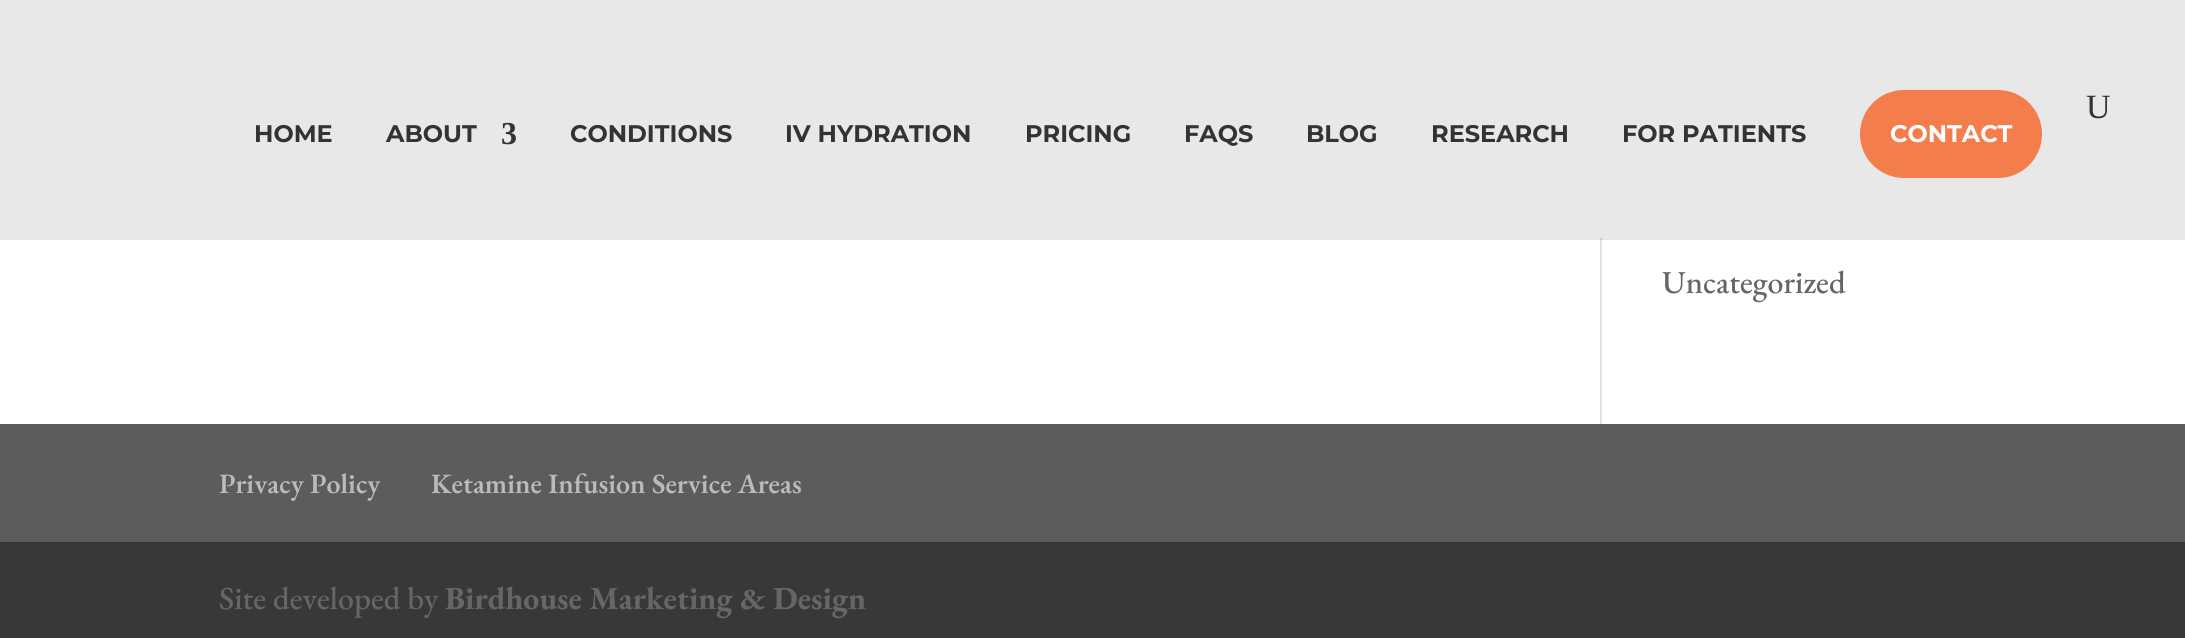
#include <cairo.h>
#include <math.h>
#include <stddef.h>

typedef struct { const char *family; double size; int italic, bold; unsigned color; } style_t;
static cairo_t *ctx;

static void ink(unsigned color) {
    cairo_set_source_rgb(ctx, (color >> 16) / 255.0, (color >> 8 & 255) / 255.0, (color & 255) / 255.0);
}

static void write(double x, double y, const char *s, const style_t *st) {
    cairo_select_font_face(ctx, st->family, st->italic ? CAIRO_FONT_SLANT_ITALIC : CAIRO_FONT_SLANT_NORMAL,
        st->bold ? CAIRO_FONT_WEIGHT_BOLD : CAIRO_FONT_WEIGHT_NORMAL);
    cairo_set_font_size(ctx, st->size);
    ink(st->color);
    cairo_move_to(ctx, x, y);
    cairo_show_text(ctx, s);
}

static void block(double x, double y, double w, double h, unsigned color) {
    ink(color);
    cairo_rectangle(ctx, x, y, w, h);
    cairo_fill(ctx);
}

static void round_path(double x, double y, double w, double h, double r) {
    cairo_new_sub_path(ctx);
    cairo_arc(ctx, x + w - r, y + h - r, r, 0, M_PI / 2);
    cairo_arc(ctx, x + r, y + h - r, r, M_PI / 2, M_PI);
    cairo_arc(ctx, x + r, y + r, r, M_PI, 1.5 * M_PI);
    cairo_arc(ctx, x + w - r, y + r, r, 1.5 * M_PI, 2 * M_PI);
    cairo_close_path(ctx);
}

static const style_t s1 = {"Liberation Serif", 34, 0, 0, 0x333333};
static const style_t s2 = {"Montserrat", 24, 0, 1, 0x333333};
static const style_t s3 = {"Liberation Serif", 32, 0, 1, 0x333333};
static const style_t s4 = {"Montserrat", 24, 0, 1, 0xffffff};
static const style_t s5 = {"EB Garamond Medium", 32, 0, 0, 0x666666};
static const style_t s6 = {"EB Garamond SemiBold", 28, 0, 0, 0xbbbbbb};
static const style_t s7 = {"EB Garamond", 32, 0, 1, 0x666666};

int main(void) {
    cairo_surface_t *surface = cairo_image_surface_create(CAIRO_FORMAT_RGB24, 2185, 638);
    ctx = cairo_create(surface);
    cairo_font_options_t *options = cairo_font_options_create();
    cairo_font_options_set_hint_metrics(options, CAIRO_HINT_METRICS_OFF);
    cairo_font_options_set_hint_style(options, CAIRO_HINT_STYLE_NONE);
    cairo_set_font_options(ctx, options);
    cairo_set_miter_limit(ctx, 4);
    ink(0xffffff);
    cairo_paint(ctx);
    block(0, 238, 2185, 2, 0xe6e6e6);
    block(0, 0, 2185, 238, 0xe8e8e8);
    write(2086, 118, "U", &s1);
    write(254, 142, "HOME", &s2);
    write(386, 142, "ABOUT", &s2);
    write(501, 144, "3", &s3);
    write(570, 142, "CONDITIONS", &s2);
    write(785, 142, "IV HYDRATION", &s2);
    write(1025, 142, "PRICING", &s2);
    write(1184, 142, "FAQS", &s2);
    write(1306, 142, "BLOG", &s2);
    write(1431, 142, "RESEARCH", &s2);
    write(1622, 142, "FOR PATIENTS", &s2);
    ink(0xf37e4c);
    round_path(1860, 90, 182, 88, 44);
    cairo_fill(ctx);
    write(1890, 142, "CONTACT", &s4);
    block(1600, 240, 2, 184, 0xe2e2e2);
    block(1600, 238, 2, 2, 0xcbcbcb);
    write(1662, 293, "Uncategorized", &s5);
    block(0, 424, 2185, 118, 0x5d5c5a);
    write(219, 493, "Privacy Policy", &s6);
    write(431, 493, "Ketamine Infusion Service Areas", &s6);
    block(0, 542, 2185, 96, 0x393837);
    write(219, 609, "Site developed by", &s5);
    write(445, 609, "Birdhouse Marketing & Design", &s7);
    cairo_surface_write_to_png(surface, "screenshot.png");
    cairo_font_options_destroy(options);
    cairo_destroy(ctx);
    cairo_surface_destroy(surface);
    return 0;
}
